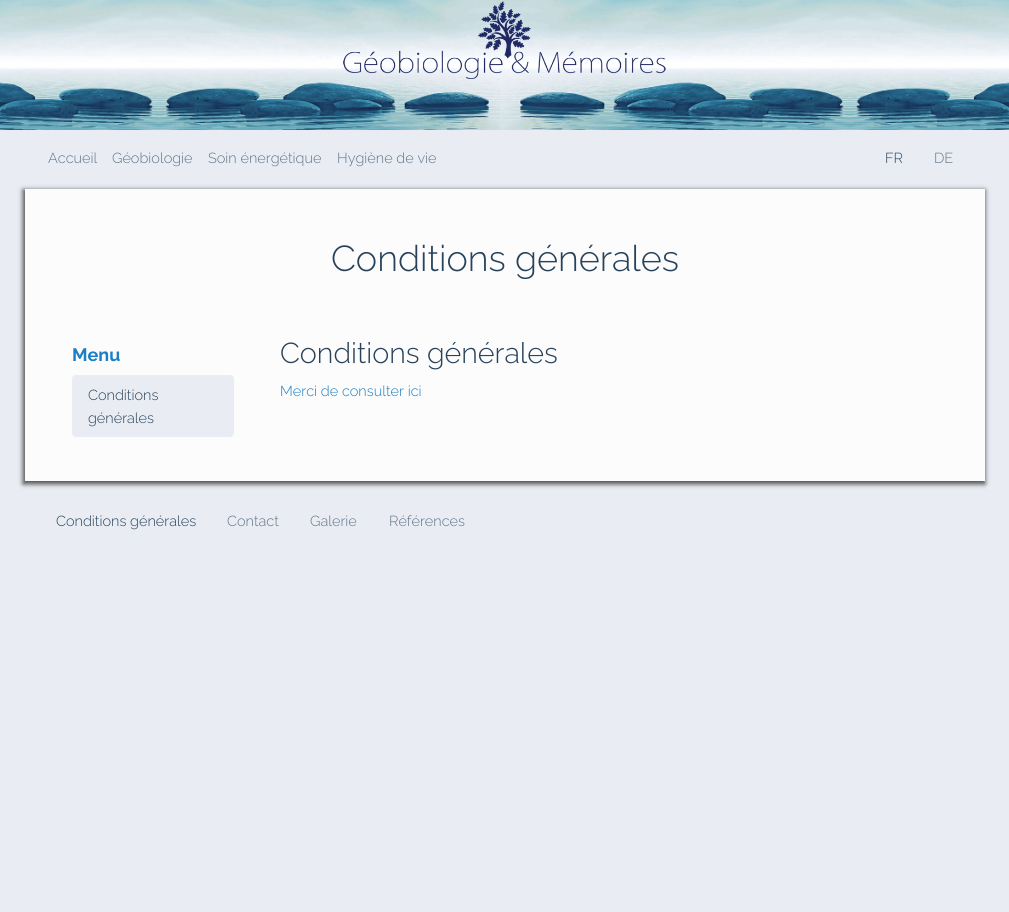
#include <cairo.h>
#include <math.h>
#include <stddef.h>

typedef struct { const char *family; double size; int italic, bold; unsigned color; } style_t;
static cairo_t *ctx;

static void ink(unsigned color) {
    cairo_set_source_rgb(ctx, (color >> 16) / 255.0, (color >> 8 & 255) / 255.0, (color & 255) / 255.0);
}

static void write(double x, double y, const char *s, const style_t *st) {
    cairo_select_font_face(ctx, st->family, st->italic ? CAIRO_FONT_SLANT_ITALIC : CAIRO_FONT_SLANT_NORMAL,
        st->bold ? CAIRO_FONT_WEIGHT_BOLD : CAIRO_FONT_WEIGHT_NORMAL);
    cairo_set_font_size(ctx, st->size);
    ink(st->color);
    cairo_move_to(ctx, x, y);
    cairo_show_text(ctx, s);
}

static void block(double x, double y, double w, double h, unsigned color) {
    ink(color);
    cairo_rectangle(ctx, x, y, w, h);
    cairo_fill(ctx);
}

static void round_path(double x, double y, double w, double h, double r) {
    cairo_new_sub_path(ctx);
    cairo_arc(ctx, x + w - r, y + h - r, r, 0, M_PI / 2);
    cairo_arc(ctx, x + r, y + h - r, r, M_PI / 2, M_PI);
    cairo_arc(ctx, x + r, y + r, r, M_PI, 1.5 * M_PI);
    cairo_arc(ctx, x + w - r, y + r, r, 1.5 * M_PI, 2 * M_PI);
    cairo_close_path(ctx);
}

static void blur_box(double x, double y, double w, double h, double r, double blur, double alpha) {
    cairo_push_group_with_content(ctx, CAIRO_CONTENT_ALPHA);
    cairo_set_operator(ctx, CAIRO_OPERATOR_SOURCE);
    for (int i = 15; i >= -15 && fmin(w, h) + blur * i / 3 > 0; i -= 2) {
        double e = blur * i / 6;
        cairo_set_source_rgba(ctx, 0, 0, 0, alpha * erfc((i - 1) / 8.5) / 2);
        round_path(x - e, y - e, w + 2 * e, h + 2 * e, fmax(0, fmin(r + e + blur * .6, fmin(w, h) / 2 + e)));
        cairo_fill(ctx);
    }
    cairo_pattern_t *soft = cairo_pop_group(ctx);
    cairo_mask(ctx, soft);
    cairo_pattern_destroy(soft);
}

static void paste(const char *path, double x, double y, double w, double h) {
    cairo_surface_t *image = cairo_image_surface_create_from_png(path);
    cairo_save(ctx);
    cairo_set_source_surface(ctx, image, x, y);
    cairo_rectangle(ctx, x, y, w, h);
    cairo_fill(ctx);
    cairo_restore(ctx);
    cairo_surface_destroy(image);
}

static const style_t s1 = {"Raleway Light", 14.5, 0, 0, 0x627589};
static const style_t s2 = {"Raleway Light", 14.5, 0, 0, 0x28425b};
static const style_t s3 = {"Raleway Light", 36, 0, 0, 0x28425b};
static const style_t s4 = {"Raleway", 18, 0, 1, 0x1b7ec6};
static const style_t s5 = {"Raleway Light", 28.75, 0, 0, 0x28425b};
static const style_t s6 = {"Raleway Light", 14.5, 0, 0, 0x1b7ec6};

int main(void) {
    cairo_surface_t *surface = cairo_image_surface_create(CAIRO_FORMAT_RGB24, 1009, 912);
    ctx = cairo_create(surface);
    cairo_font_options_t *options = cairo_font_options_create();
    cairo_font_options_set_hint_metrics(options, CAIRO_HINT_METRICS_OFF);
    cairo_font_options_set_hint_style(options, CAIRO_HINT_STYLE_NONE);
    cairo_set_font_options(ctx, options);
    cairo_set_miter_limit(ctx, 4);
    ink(0xe9edf3);
    cairo_paint(ctx);
    paste("pic1.png", 0, 0, 1009, 130);
    paste("pic2.png", 343, 1, 323, 78);
    write(48, 163, "Accueil", &s1);
    write(112, 163, "Géobiologie", &s1);
    write(208, 163, "Soin énergétique", &s1);
    write(337, 163, "Hygiène de vie", &s1);
    write(885, 163, "FR", &s2);
    write(934, 163, "DE", &s1);
    ink(0x000000);
    blur_box(23, 190, 962, 294, 0, 2.5, 0.7);
    block(25, 189, 960, 292, 0xfbfcfb);
    write(331, 271, "Conditions générales", &s3);
    write(72, 361, "Menu", &s4);
    ink(0xe9edf3);
    round_path(72, 375, 162, 62, 4);
    cairo_fill(ctx);
    write(88, 400, "Conditions", &s2);
    write(88, 423, "générales", &s2);
    write(280, 363, "Conditions générales", &s5);
    write(280, 396, "Merci de consulter ici", &s6);
    write(56, 526, "Conditions générales", &s2);
    write(227, 526, "Contact", &s1);
    write(310, 526, "Galerie", &s1);
    write(389, 526, "Références", &s1);
    cairo_surface_write_to_png(surface, "screenshot.png");
    cairo_font_options_destroy(options);
    cairo_destroy(ctx);
    cairo_surface_destroy(surface);
    return 0;
}
